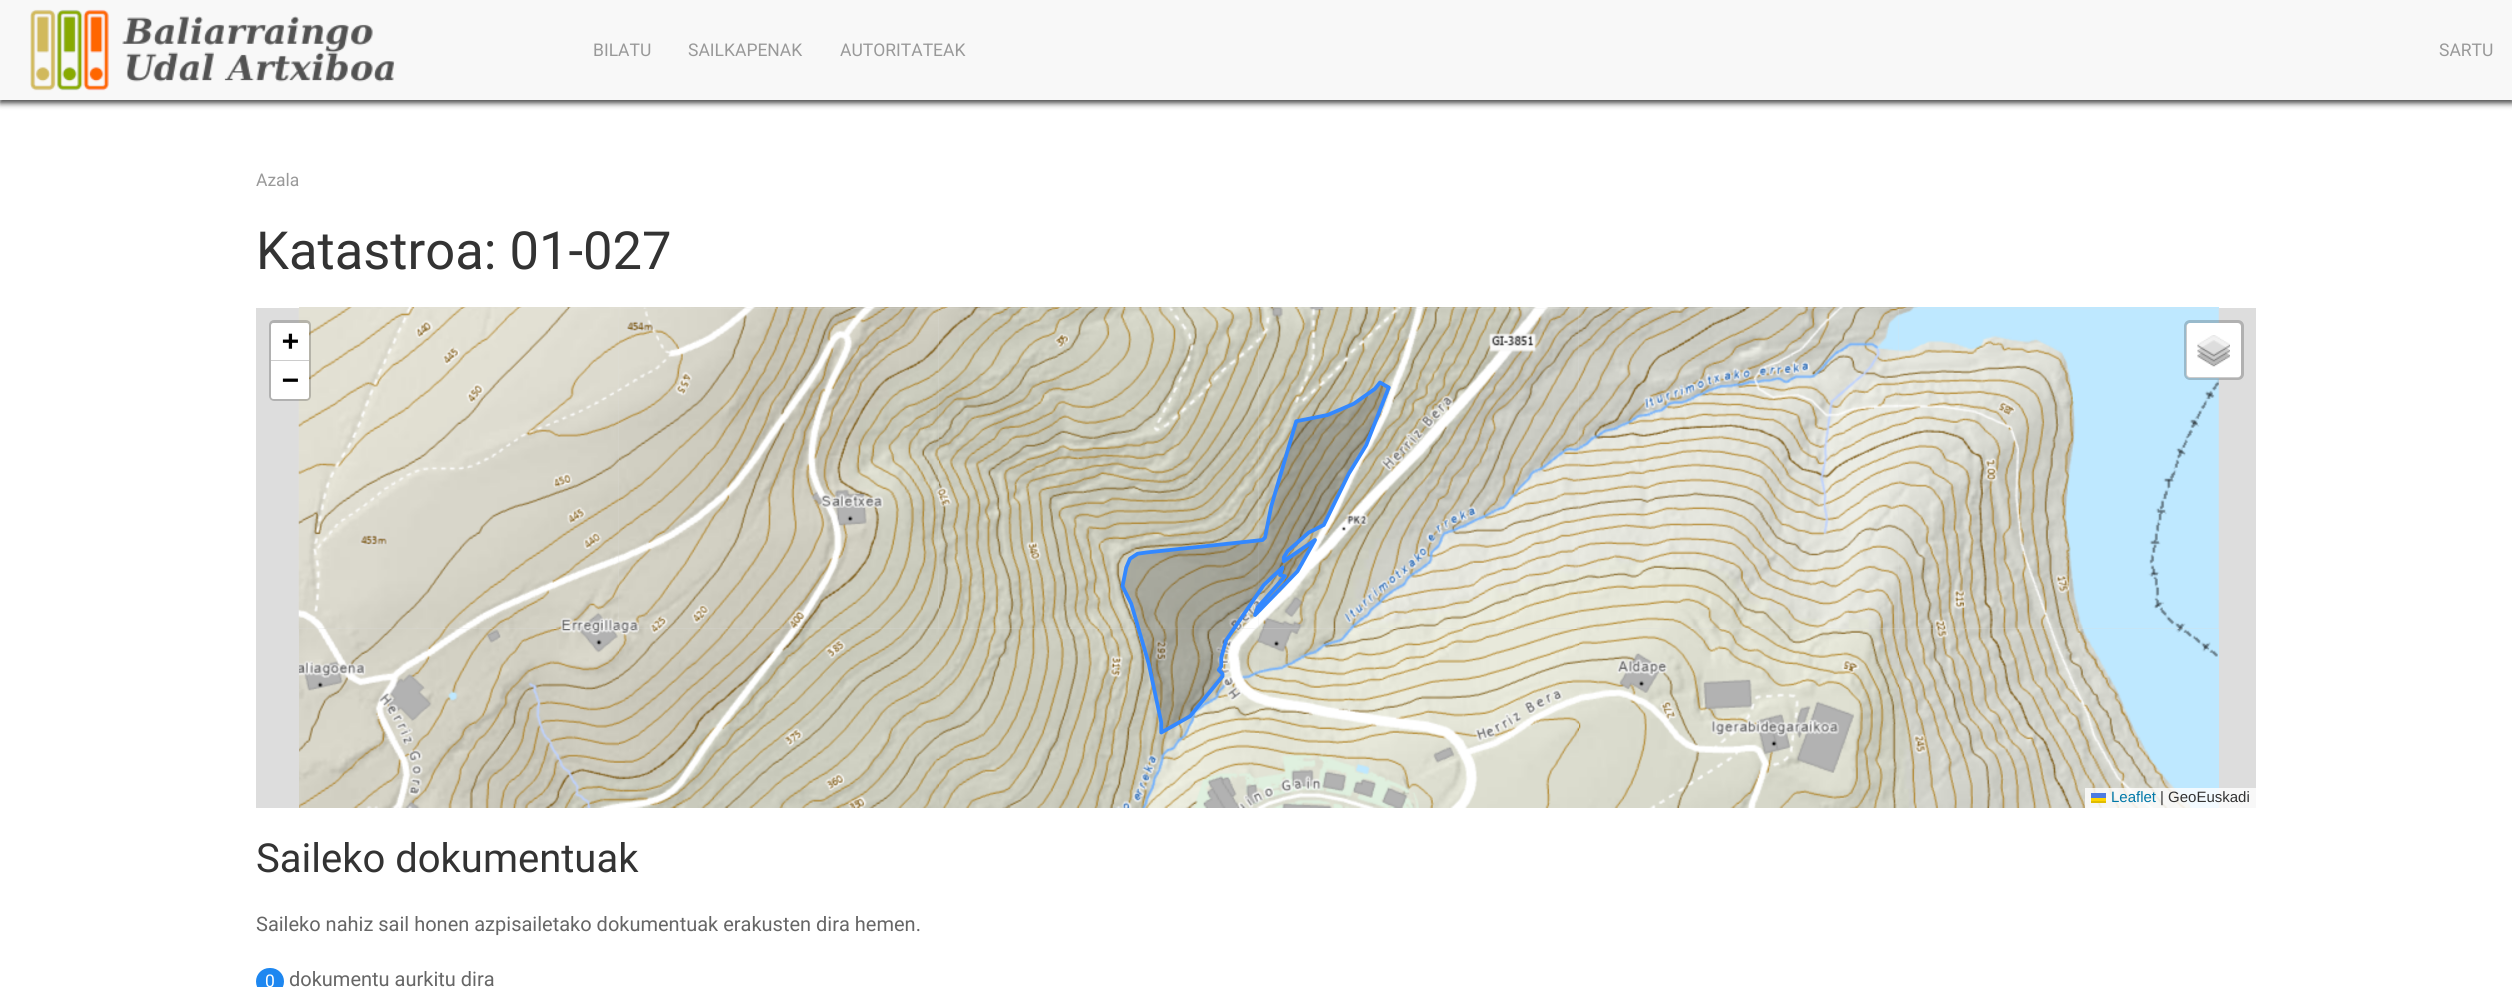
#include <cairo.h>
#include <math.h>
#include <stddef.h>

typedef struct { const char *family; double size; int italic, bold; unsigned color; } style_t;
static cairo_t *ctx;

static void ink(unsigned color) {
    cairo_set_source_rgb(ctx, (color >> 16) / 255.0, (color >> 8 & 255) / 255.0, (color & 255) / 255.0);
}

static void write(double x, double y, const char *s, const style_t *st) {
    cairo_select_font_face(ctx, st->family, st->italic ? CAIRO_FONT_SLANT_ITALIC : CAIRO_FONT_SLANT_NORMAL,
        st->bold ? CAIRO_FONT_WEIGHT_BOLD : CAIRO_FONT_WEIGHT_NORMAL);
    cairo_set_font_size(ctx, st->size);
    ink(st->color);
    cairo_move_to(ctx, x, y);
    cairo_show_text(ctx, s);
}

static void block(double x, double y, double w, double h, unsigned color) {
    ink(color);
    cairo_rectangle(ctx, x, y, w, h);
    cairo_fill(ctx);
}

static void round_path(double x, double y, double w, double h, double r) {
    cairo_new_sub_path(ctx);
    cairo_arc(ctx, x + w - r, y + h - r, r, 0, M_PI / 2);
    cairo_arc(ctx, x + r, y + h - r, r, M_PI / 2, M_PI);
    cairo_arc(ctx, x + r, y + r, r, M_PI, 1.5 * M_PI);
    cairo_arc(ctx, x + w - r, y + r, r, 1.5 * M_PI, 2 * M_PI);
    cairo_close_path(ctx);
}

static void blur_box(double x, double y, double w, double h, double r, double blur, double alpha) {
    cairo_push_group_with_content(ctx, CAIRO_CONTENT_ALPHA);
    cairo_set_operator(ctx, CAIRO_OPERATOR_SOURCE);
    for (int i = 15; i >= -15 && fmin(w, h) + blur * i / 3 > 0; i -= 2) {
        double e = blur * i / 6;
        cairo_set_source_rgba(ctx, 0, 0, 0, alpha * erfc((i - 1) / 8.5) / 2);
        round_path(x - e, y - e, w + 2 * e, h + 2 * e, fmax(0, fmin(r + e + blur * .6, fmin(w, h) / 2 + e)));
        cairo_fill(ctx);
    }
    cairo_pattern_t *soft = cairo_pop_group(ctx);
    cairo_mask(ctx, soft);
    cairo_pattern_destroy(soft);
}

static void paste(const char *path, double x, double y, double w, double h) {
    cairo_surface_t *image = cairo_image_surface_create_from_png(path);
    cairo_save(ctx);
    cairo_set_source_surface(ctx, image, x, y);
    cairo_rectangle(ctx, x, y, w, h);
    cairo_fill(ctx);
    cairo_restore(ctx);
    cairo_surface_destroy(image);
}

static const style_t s1 = {"Roboto", 17.5, 0, 0, 0x999999};
static const style_t s2 = {"Roboto", 52.5, 0, 0, 0x333333};
static const style_t s3 = {"DejaVu Sans Mono", 28, 0, 1, 0x000000};
static const style_t s4 = {"Liberation Sans", 15, 0, 0, 0x0078a8};
static const style_t s5 = {"Liberation Sans", 15, 0, 0, 0x333333};
static const style_t s6 = {"Roboto", 40, 0, 0, 0x333333};
static const style_t s7 = {"Roboto", 20, 0, 0, 0x666666};
static const style_t s8 = {"Roboto", 17.5, 0, 0, 0xffffff};

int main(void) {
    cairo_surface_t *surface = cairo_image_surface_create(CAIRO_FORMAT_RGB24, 2512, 987);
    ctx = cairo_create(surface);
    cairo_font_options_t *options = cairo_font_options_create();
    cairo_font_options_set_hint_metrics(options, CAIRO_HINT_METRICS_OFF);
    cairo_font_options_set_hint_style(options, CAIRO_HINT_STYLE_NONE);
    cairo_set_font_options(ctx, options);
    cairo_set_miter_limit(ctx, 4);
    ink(0xffffff);
    cairo_paint(ctx);
    ink(0x000000);
    blur_box(0, 3, 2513, 100, 0, 3, 0.75);
    block(0, 0, 2512, 100, 0xf8f8f8);
    paste("pic1.png", 30, 9, 365, 82);
    write(593, 56, "BILATU", &s1);
    write(688, 56, "SAILKAPENAK", &s1);
    write(840, 56, "AUTORITATEAK", &s1);
    write(2439, 56, "SARTU", &s1);
    write(256, 186, "Azala", &s1);
    write(256, 269, "Katastroa: 01-027", &s2);
    block(256, 308, 2000, 500, 0xdddddd);
    paste("pic10.png", 938, 308, 321, 321);
    paste("pic9.png", 618, 308, 321, 321);
    paste("pic8.png", 298, 308, 321, 321);
    paste("pic2.png", 299, 307, 320, 2);
    paste("pic3.png", 619, 307, 320, 2);
    paste("pic11.png", 1258, 308, 321, 321);
    paste("pic4.png", 939, 307, 320, 2);
    paste("pic5.png", 1259, 307, 320, 2);
    paste("pic12.png", 1578, 308, 321, 321);
    paste("pic6.png", 1579, 307, 320, 2);
    paste("pic13.png", 1898, 308, 321, 321);
    paste("pic7.png", 1899, 307, 320, 2);
    paste("pic14.png", 299, 629, 320, 179);
    paste("pic15.png", 619, 629, 320, 179);
    paste("pic16.png", 939, 629, 320, 179);
    paste("pic17.png", 1259, 629, 320, 179);
    paste("pic18.png", 1579, 629, 320, 179);
    paste("pic19.png", 1899, 629, 320, 179);
    paste("pic20.png", 1120, 380, 271, 355);
    round_path(270.5, 321.5, 39, 78, 3.5);
    cairo_set_source_rgba(ctx, 0, 0, 0, 0.2);
    cairo_set_line_width(ctx, 3);
    cairo_stroke(ctx);
    ink(0xffffff);
    cairo_new_path(ctx);
    cairo_move_to(ctx, 273.5, 323);
    cairo_line_to(ctx, 306.5, 323);
    cairo_curve_to(ctx, 308, 323, 309, 324, 309, 325.5);
    cairo_line_to(ctx, 309, 361);
    cairo_line_to(ctx, 271, 361);
    cairo_line_to(ctx, 271, 325.5);
    cairo_curve_to(ctx, 271, 324, 272, 323, 273.5, 323);
    cairo_close_path(ctx);
    cairo_fill(ctx);
    block(271, 360, 38, 1, 0xcccccc);
    write(282, 350, "+", &s3);
    ink(0xffffff);
    cairo_new_path(ctx);
    cairo_move_to(ctx, 271, 361);
    cairo_line_to(ctx, 309, 361);
    cairo_line_to(ctx, 309, 396.5);
    cairo_curve_to(ctx, 309, 398, 308, 399, 306.5, 399);
    cairo_line_to(ctx, 273.5, 399);
    cairo_curve_to(ctx, 272, 399, 271, 398, 271, 396.5);
    cairo_close_path(ctx);
    cairo_fill(ctx);
    write(282, 389, "−", &s3);
    ink(0xffffff);
    round_path(2186, 323, 55, 55, 4);
    cairo_fill(ctx);
    round_path(2185.5, 321.5, 57, 57, 4.5);
    cairo_set_source_rgba(ctx, 0, 0, 0, 0.2);
    cairo_stroke(ctx);
    paste("pic21.png", 2197, 335, 33, 32);
    cairo_set_source_rgba(ctx, 1, 1, 1, 0.8);
    cairo_rectangle(ctx, 2085, 788, 171, 20);
    cairo_fill(ctx);
    write(2111, 802, "Leaflet", &s4);
    block(2091, 793, 15, 5, 0x4c7be1);
    block(2091, 798, 15, 3, 0xffd500);
    block(2091, 801, 15, 2, 0xe0bc00);
    write(2160, 802, "| GeoEuskadi", &s5);
    write(256, 872, "Saileko dokumentuak", &s6);
    write(256, 931, "Saileko nahiz sail honen azpisailetako dokumentuak erakusten dira hemen.", &s7);
    ink(0x1e87f0);
    round_path(256, 968, 28, 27, 13.5);
    cairo_fill(ctx);
    write(265, 987, "0", &s8);
    write(289, 986, "dokumentu aurkitu dira", &s7);
    cairo_surface_write_to_png(surface, "screenshot.png");
    cairo_font_options_destroy(options);
    cairo_destroy(ctx);
    cairo_surface_destroy(surface);
    return 0;
}
